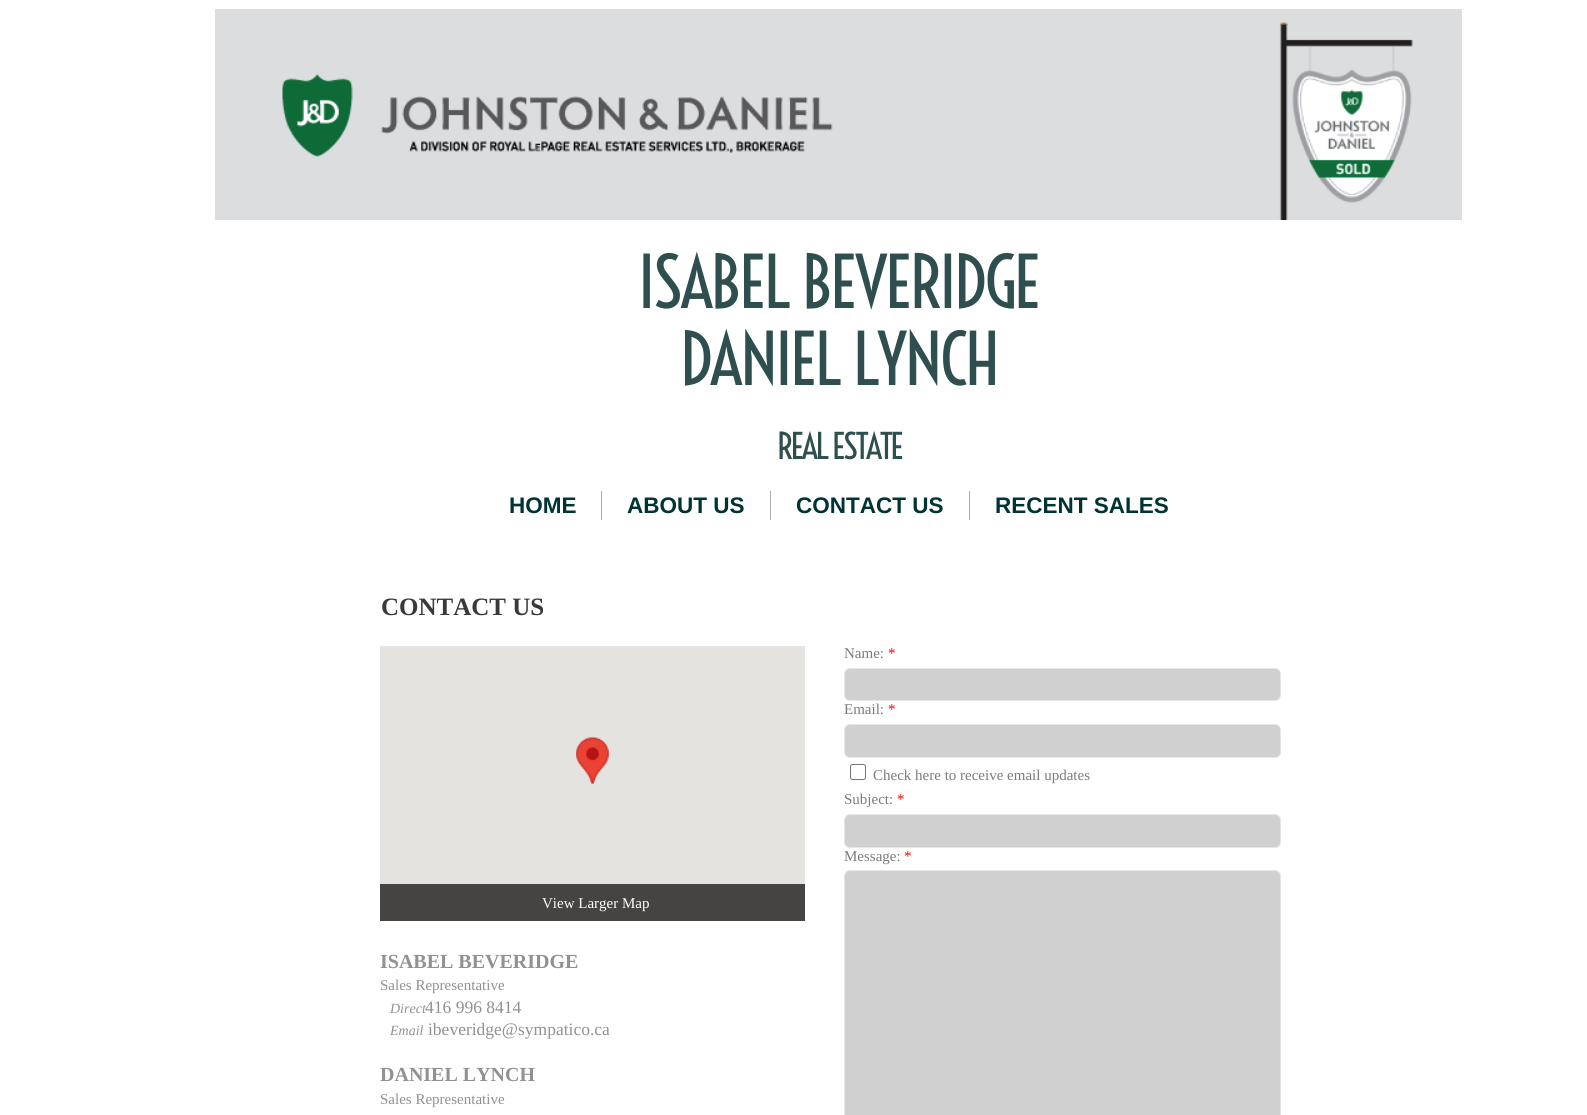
#include <cairo.h>
#include <math.h>
#include <stddef.h>

typedef struct { const char *family; double size; int italic, bold; unsigned color; } style_t;
static cairo_t *ctx;

static void ink(unsigned color) {
    cairo_set_source_rgb(ctx, (color >> 16) / 255.0, (color >> 8 & 255) / 255.0, (color & 255) / 255.0);
}

static void write(double x, double y, const char *s, const style_t *st) {
    cairo_select_font_face(ctx, st->family, st->italic ? CAIRO_FONT_SLANT_ITALIC : CAIRO_FONT_SLANT_NORMAL,
        st->bold ? CAIRO_FONT_WEIGHT_BOLD : CAIRO_FONT_WEIGHT_NORMAL);
    cairo_set_font_size(ctx, st->size);
    ink(st->color);
    cairo_move_to(ctx, x, y);
    cairo_show_text(ctx, s);
}

static void write_spaced(double x, double y, const char *s, double letter, double word) {
    cairo_move_to(ctx, x, y);
    while (*s) {
        char ch[5] = {0};
        int n = 0;
        do ch[n++] = *s++; while ((*s & 0xC0) == 0x80);
        cairo_show_text(ctx, ch);
        cairo_rel_move_to(ctx, letter + word * (*ch == ' '), 0);
    }
}

static void block(double x, double y, double w, double h, unsigned color) {
    ink(color);
    cairo_rectangle(ctx, x, y, w, h);
    cairo_fill(ctx);
}

static void round_path(double x, double y, double w, double h, double r) {
    cairo_new_sub_path(ctx);
    cairo_arc(ctx, x + w - r, y + h - r, r, 0, M_PI / 2);
    cairo_arc(ctx, x + r, y + h - r, r, M_PI / 2, M_PI);
    cairo_arc(ctx, x + r, y + r, r, M_PI, 1.5 * M_PI);
    cairo_arc(ctx, x + w - r, y + r, r, 1.5 * M_PI, 2 * M_PI);
    cairo_close_path(ctx);
}

static void paste(const char *path, double x, double y, double w, double h) {
    cairo_surface_t *image = cairo_image_surface_create_from_png(path);
    cairo_save(ctx);
    cairo_set_source_surface(ctx, image, x, y);
    cairo_rectangle(ctx, x, y, w, h);
    cairo_fill(ctx);
    cairo_restore(ctx);
    cairo_surface_destroy(image);
}

static const style_t s1 = {"Liberation Sans", 22.5, 0, 1, 0x003333};
static const style_t s2 = {"Liberation Serif", 25, 0, 1, 0x3a3939};
static const style_t s3 = {"Liberation Serif", 15, 0, 0, 0x7c7b7b};
static const style_t s4 = {"Liberation Serif", 15, 0, 0, 0xff0000};
static const style_t s5 = {"Liberation Serif", 15, 0, 0, 0xffffff};
static const style_t s6 = {"Liberation Serif", 20, 0, 1, 0x919191};
static const style_t s7 = {"Liberation Serif", 15, 0, 0, 0x919191};
static const style_t s8 = {"Liberation Serif", 14, 1, 0, 0x919191};
static const style_t s9 = {"Liberation Serif", 17.5, 0, 0, 0x919191};

int main(void) {
    cairo_surface_t *surface = cairo_image_surface_create(CAIRO_FORMAT_RGB24, 1587, 1115);
    ctx = cairo_create(surface);
    cairo_font_options_t *options = cairo_font_options_create();
    cairo_font_options_set_hint_metrics(options, CAIRO_HINT_METRICS_OFF);
    cairo_font_options_set_hint_style(options, CAIRO_HINT_STYLE_NONE);
    cairo_set_font_options(ctx, options);
    cairo_set_miter_limit(ctx, 4);
    ink(0xffffff);
    cairo_paint(ctx);
    paste("pic1.png", 215, 9, 1247, 211);
    cairo_select_font_face(ctx, "Voltaire", CAIRO_FONT_SLANT_NORMAL, CAIRO_FONT_WEIGHT_NORMAL);
    cairo_set_font_size(ctx, 70);
    ink(0x2f4f4f);
    write_spaced(638, 308, "ISABEL BEVERIDGE", -2.5, 0);
    write_spaced(680, 385, "DANIEL LYNCH", -2.5, 0);
    cairo_set_font_size(ctx, 35);
    write_spaced(777, 459, "REAL ESTATE", -2.5, 0);
    block(601, 491, 1, 29, 0xaeaeae);
    write(509, 513, "HOME", &s1);
    block(770, 491, 1, 29, 0xaeaeae);
    write(627, 513, "ABOUT US", &s1);
    block(969, 491, 1, 29, 0xaeaeae);
    write(796, 513, "CONTACT US", &s1);
    write(995, 513, "RECENT SALES", &s1);
    write(381, 615, "CONTACT US", &s2);
    write(844, 658, "Name:", &s3);
    write(888, 658, "*", &s4);
    ink(0xd0d0d0);
    round_path(844.5, 668.5, 436, 32, 5.5);
    cairo_fill_preserve(ctx);
    ink(0xe7e7e7);
    cairo_set_line_width(ctx, 1);
    cairo_stroke(ctx);
    write(844, 714, "Email:", &s3);
    write(888, 714, "*", &s4);
    ink(0xd0d0d0);
    round_path(844.5, 724.5, 436, 33, 5.5);
    cairo_fill_preserve(ctx);
    ink(0xe7e7e7);
    cairo_stroke(ctx);
    round_path(850.5, 764.5, 15, 15, 2);
    ink(0x767676);
    cairo_stroke(ctx);
    write(873, 780, "Check here to receive email updates", &s3);
    write(844, 804, "Subject:", &s3);
    write(897, 804, "*", &s4);
    ink(0xd0d0d0);
    round_path(844.5, 814.5, 436, 33, 5.5);
    cairo_fill_preserve(ctx);
    ink(0xe7e7e7);
    cairo_stroke(ctx);
    write(844, 861, "Message:", &s3);
    write(904, 861, "*", &s4);
    ink(0xd0d0d0);
    round_path(844.5, 870.5, 436, 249, 5.5);
    cairo_fill_preserve(ctx);
    ink(0xe7e7e7);
    cairo_stroke(ctx);
    block(380, 646, 425, 238, 0xe5e3df);
    paste("pic2.png", 576, 737, 33, 47);
    block(380, 884, 425, 37, 0x454443);
    write(542, 908, "View Larger Map", &s5);
    write(380, 968, "ISABEL BEVERIDGE", &s6);
    write(380, 990, "Sales Representative", &s7);
    write(390, 1013, "Direct", &s8);
    write(425, 1013, "416 996 8414", &s9);
    write(390, 1035, "Email", &s8);
    write(428, 1035, "ibeveridge@sympatico.ca", &s9);
    write(380, 1081, "DANIEL LYNCH", &s6);
    write(380, 1104, "Sales Representative", &s7);
    cairo_surface_write_to_png(surface, "screenshot.png");
    cairo_font_options_destroy(options);
    cairo_destroy(ctx);
    cairo_surface_destroy(surface);
    return 0;
}
